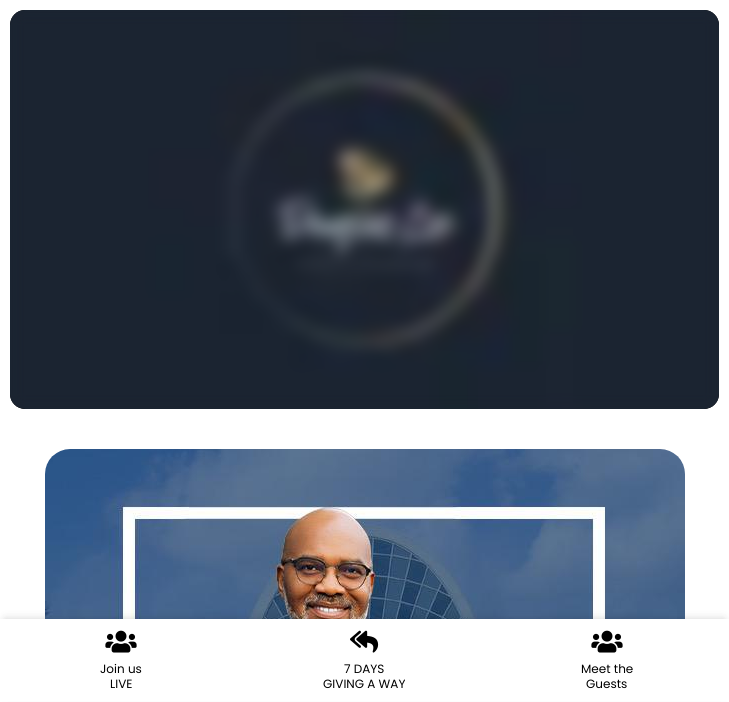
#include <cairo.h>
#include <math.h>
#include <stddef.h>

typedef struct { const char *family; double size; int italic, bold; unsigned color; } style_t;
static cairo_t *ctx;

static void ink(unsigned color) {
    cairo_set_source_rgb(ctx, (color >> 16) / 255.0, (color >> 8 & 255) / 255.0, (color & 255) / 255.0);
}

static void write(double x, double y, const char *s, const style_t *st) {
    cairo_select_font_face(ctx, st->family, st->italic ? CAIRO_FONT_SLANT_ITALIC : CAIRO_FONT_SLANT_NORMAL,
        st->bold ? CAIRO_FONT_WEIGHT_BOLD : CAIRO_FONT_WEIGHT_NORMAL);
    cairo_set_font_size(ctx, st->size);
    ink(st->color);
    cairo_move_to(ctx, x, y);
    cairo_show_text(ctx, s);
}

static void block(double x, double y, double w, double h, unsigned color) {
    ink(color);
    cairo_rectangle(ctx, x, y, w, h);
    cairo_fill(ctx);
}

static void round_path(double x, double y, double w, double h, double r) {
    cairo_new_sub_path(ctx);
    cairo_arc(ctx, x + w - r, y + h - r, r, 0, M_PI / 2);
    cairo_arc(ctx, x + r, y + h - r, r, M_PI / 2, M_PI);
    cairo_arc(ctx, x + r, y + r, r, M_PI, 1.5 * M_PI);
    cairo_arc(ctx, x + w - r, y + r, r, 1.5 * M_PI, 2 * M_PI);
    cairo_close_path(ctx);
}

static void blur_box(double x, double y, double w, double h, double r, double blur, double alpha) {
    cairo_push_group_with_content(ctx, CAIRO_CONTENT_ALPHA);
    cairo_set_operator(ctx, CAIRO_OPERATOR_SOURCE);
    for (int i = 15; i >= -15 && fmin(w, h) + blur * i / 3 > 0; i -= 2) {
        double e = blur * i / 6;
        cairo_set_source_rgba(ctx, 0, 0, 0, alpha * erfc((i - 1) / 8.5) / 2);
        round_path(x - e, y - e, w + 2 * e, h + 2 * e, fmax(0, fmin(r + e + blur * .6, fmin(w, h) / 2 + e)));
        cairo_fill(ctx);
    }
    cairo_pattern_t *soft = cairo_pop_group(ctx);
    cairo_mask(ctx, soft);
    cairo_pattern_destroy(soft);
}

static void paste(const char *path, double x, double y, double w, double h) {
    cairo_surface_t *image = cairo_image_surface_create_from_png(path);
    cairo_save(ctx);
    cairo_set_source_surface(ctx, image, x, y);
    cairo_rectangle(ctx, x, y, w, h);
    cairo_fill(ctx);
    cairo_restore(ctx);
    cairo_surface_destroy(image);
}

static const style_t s1 = {"Poppins", 12, 0, 0, 0x000000};

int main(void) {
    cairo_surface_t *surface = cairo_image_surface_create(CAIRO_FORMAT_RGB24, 729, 702);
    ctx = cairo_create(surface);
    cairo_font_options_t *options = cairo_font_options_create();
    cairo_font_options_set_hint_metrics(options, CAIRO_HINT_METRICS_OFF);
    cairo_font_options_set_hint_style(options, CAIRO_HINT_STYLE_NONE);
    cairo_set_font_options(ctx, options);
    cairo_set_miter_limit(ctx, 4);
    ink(0xffffff);
    cairo_paint(ctx);
    ink(0x000000);
    round_path(10, 10, 709, 399, 15);
    cairo_fill(ctx);
    paste("pic1.png", 10, 10, 709, 399);
    paste("pic2.png", 45, 449, 640, 170);
    ink(0x000000);
    blur_box(5, 620, 719, 73, 0, 4.5, 0.22);
    block(0, 619, 729, 82, 0xffffff);
    paste("pic3.png", 105, 630, 32, 23);
    write(100, 673, "Join us", &s1);
    write(110, 688, "LIVE", &s1);
    paste("pic4.png", 350, 630, 29, 23);
    write(344, 673, "7 DAYS", &s1);
    write(323, 688, "GIVING A WAY", &s1);
    paste("pic3.png", 591, 630, 32, 23);
    write(581, 673, "Meet the", &s1);
    write(586, 688, "Guests", &s1);
    cairo_surface_write_to_png(surface, "screenshot.png");
    cairo_font_options_destroy(options);
    cairo_destroy(ctx);
    cairo_surface_destroy(surface);
    return 0;
}
